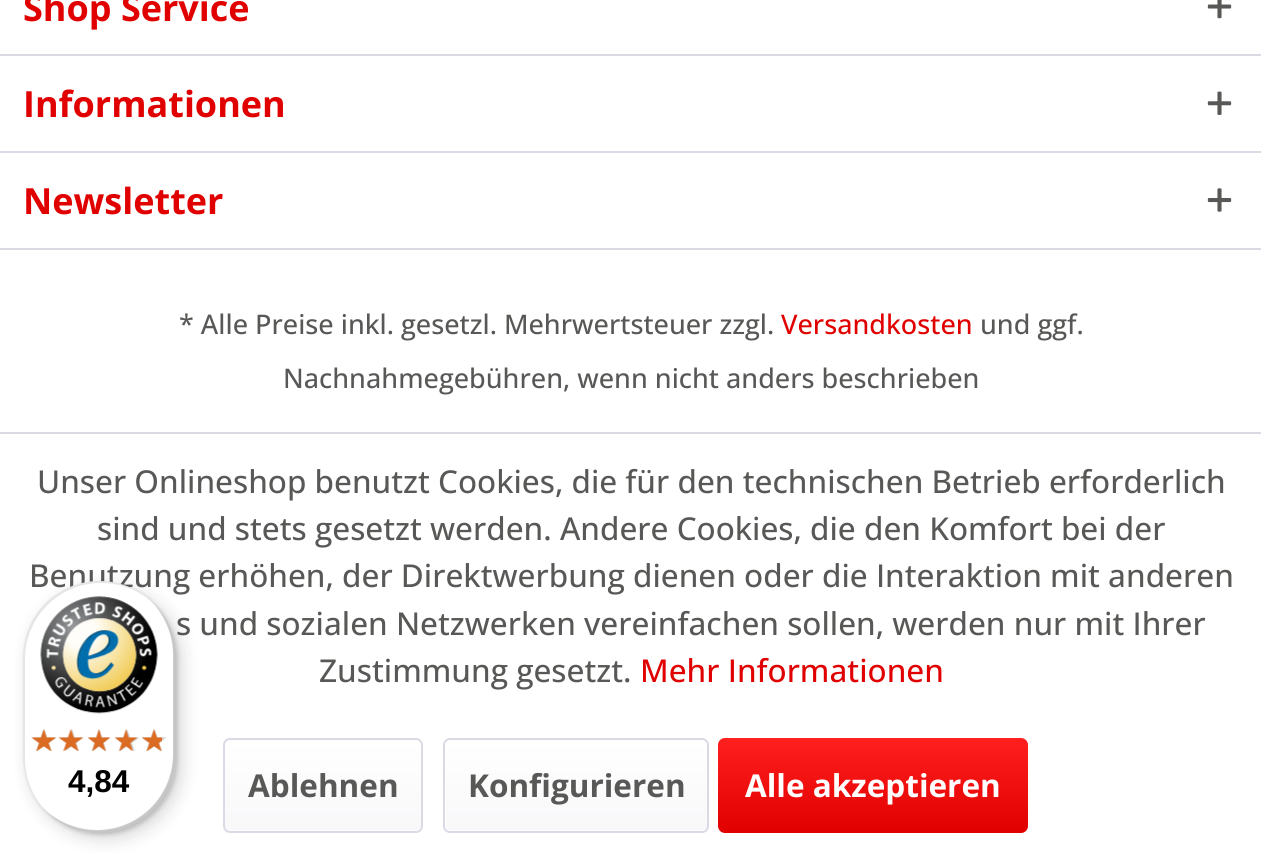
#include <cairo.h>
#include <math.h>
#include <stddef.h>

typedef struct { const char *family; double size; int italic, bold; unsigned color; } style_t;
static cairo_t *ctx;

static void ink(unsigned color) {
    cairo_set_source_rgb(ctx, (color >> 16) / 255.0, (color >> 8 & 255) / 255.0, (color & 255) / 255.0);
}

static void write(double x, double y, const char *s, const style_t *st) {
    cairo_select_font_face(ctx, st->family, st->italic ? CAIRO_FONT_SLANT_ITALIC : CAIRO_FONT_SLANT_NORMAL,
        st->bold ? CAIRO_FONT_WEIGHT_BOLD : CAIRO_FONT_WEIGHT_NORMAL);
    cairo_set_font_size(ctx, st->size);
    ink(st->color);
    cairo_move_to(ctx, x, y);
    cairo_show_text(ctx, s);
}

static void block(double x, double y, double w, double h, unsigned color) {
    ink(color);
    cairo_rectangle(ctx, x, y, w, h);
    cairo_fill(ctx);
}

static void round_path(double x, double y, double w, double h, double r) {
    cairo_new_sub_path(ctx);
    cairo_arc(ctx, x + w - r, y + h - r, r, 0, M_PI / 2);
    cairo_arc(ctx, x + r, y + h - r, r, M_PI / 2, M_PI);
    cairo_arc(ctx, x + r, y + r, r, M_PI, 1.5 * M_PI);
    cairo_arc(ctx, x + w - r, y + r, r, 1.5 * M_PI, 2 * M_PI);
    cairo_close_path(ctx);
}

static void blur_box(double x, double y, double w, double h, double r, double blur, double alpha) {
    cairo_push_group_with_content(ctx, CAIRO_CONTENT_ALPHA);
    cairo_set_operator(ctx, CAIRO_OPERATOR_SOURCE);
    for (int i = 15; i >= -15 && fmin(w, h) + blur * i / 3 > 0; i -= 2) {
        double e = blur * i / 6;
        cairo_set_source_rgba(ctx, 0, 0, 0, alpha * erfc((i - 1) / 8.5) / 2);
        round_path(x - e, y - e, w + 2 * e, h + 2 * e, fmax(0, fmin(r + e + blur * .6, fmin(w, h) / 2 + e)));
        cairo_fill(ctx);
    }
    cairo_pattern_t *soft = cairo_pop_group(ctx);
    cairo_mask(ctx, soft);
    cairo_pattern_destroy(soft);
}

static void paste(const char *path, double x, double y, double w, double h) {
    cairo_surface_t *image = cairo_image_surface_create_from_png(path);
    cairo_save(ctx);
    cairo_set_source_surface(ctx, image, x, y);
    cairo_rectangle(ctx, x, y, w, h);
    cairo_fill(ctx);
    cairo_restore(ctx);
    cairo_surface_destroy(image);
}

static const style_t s1 = {"Open Sans", 36, 0, 1, 0xe10000};
static const style_t s2 = {"Open Sans Medium", 27, 0, 0, 0x585856};
static const style_t s3 = {"Open Sans Medium", 27, 0, 0, 0xe10000};
static const style_t s4 = {"Open Sans Medium", 31.5, 0, 0, 0x585856};
static const style_t s5 = {"Open Sans Medium", 31.5, 0, 0, 0xe10000};
static const style_t s6 = {"Open Sans", 31.5, 0, 1, 0x585856};
static const style_t s7 = {"Open Sans", 31.5, 0, 1, 0xffffff};
static const style_t s8 = {"Liberation Sans", 31.5, 0, 1, 0x000000};

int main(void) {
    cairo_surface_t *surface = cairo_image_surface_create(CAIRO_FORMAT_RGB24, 1261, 853);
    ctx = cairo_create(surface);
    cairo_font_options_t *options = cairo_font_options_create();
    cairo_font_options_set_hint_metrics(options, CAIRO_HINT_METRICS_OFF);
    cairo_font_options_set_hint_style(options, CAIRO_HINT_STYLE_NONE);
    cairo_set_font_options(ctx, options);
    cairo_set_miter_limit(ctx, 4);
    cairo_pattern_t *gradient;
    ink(0xffffff);
    cairo_paint(ctx);
    write(23, 21, "Shop Service", &s1);
    paste("pic1.png", 1207, 0, 25, 19);
    block(0, 54, 1261, 2, 0xdadae5);
    write(23, 117, "Informationen", &s1);
    paste("pic2.png", 1207, 91, 25, 24);
    block(0, 151, 1261, 2, 0xdadae5);
    block(0, 248, 1261, 2, 0xdadae5);
    write(23, 214, "Newsletter", &s1);
    paste("pic3.png", 1207, 188, 25, 24);
    write(179, 334, "* Alle Preise inkl. gesetzl. Mehrwertsteuer zzgl.", &s2);
    write(781, 334, "Versandkosten", &s3);
    write(980, 334, "und ggf.", &s2);
    write(283, 388, "Nachnahmegebühren, wenn nicht anders beschrieben", &s2);
    block(0, 432, 1261, 2, 0xdadae5);
    write(37, 493, "Unser Onlineshop benutzt Cookies, die für den technischen Betrieb erforderlich", &s4);
    write(97, 540, "sind und stets gesetzt werden. Andere Cookies, die den Komfort bei der", &s4);
    write(29, 587, "Benutzung erhöhen, der Direktwerbung dienen oder die Interaktion mit anderen", &s4);
    write(176, 635, "s und sozialen Netzwerken vereinfachen sollen, werden nur mit Ihrer", &s4);
    write(319, 682, "Zustimmung gesetzt.", &s4);
    write(640, 682, "Mehr Informationen", &s5);
    gradient = cairo_pattern_create_linear(323, 740, 323, 830);
    cairo_pattern_add_color_stop_rgba(gradient, 0, 1, 1, 1, 1);
    cairo_pattern_add_color_stop_rgba(gradient, 1, 0.973, 0.973, 0.98, 1);
    cairo_set_source(ctx, gradient);
    cairo_pattern_destroy(gradient);
    round_path(225, 740, 196, 90, 5);
    cairo_fill(ctx);
    round_path(224, 739, 198, 93, 6);
    ink(0xdadae5);
    cairo_stroke(ctx);
    write(248, 797, "Ablehnen", &s6);
    gradient = cairo_pattern_create_linear(576, 740, 576, 830);
    cairo_pattern_add_color_stop_rgba(gradient, 0, 1, 1, 1, 1);
    cairo_pattern_add_color_stop_rgba(gradient, 1, 0.973, 0.973, 0.98, 1);
    cairo_set_source(ctx, gradient);
    cairo_pattern_destroy(gradient);
    round_path(446, 740, 261, 90, 5);
    cairo_fill(ctx);
    round_path(444, 739, 264, 93, 6);
    ink(0xdadae5);
    cairo_stroke(ctx);
    write(468, 797, "Konfigurieren", &s6);
    gradient = cairo_pattern_create_linear(873, 738, 873, 833);
    cairo_pattern_add_color_stop_rgba(gradient, 0, 1, 0.122, 0.122, 1);
    cairo_pattern_add_color_stop_rgba(gradient, 1, 0.882, 0, 0, 1);
    cairo_set_source(ctx, gradient);
    cairo_pattern_destroy(gradient);
    round_path(718, 738, 310, 95, 7);
    cairo_fill(ctx);
    write(745, 797, "Alle akzeptieren", &s7);
    ink(0x000000);
    blur_box(29, 587, 153, 252, 76.5, 9, 0.15);
    blur_box(25, 583, 153, 252, 76.5, 2, 0.15);
    ink(0xffffff);
    round_path(23, 581, 153, 252, 76.5);
    cairo_fill(ctx);
    cairo_set_source_rgba(ctx, 0, 0, 0, 0.1);
    cairo_new_path(ctx);
    cairo_move_to(ctx, 101, 583);
    cairo_curve_to(ctx, 123, 583, 143, 592, 157, 607);
    cairo_curve_to(ctx, 143, 591, 122, 581, 100, 581);
    cairo_curve_to(ctx, 57, 581, 23, 615, 23, 658);
    cairo_line_to(ctx, 23, 756);
    cairo_curve_to(ctx, 23, 779, 33, 800, 49, 814);
    cairo_curve_to(ctx, 34, 800, 25, 780, 25, 758);
    cairo_line_to(ctx, 25, 659);
    cairo_curve_to(ctx, 25, 617, 59, 583, 101, 583);
    cairo_close_path(ctx);
    cairo_fill(ctx);
    cairo_set_source_rgba(ctx, 0, 0, 0, 0.2);
    cairo_new_path(ctx);
    cairo_move_to(ctx, 42, 807);
    cairo_curve_to(ctx, 56, 823, 77, 833, 100, 833);
    cairo_curve_to(ctx, 142, 833, 176, 799, 176, 756);
    cairo_line_to(ctx, 176, 658);
    cairo_curve_to(ctx, 176, 635, 166, 614, 150, 600);
    cairo_curve_to(ctx, 164, 614, 173, 634, 173, 655);
    cairo_line_to(ctx, 173, 754);
    cairo_curve_to(ctx, 173, 796, 139, 830, 97, 830);
    cairo_curve_to(ctx, 76, 830, 56, 821, 42, 807);
    cairo_close_path(ctx);
    cairo_fill(ctx);
    cairo_set_source_rgba(ctx, 0.196, 0.196, 0.196, 0.2);
    cairo_new_path(ctx);
    cairo_move_to(ctx, 47, 812);
    cairo_curve_to(ctx, 60, 825, 79, 833, 100, 833);
    cairo_curve_to(ctx, 142, 833, 176, 799, 176, 756);
    cairo_line_to(ctx, 176, 658);
    cairo_curve_to(ctx, 176, 637, 168, 618, 155, 605);
    cairo_curve_to(ctx, 167, 618, 174, 636, 174, 656);
    cairo_line_to(ctx, 174, 755);
    cairo_curve_to(ctx, 174, 797, 140, 831, 98, 831);
    cairo_curve_to(ctx, 78, 831, 60, 824, 47, 812);
    cairo_close_path(ctx);
    cairo_fill(ctx);
    cairo_set_source_rgba(ctx, 1, 1, 1, 0.3);
    cairo_new_path(ctx);
    cairo_move_to(ctx, 42, 807);
    cairo_curve_to(ctx, 56, 823, 77, 833, 100, 833);
    cairo_curve_to(ctx, 142, 833, 176, 799, 176, 756);
    cairo_line_to(ctx, 176, 658);
    cairo_curve_to(ctx, 176, 635, 166, 614, 150, 600);
    cairo_curve_to(ctx, 165, 614, 174, 634, 174, 656);
    cairo_line_to(ctx, 174, 755);
    cairo_curve_to(ctx, 174, 797, 140, 831, 98, 831);
    cairo_curve_to(ctx, 76, 831, 56, 822, 42, 807);
    cairo_close_path(ctx);
    cairo_fill(ctx);
    paste("pic4.png", 40, 596, 118, 118);
    paste("pic5.png", 31, 729, 25, 23);
    paste("pic6.png", 61, 729, 22, 22);
    paste("pic7.png", 88, 729, 22, 23);
    paste("pic8.png", 115, 729, 25, 22);
    paste("pic9.png", 142, 729, 25, 23);
    paste("pic10.png", 31, 729, 26, 22);
    paste("pic11.png", 58, 729, 26, 22);
    paste("pic12.png", 87, 729, 24, 22);
    paste("pic13.png", 114, 729, 24, 22);
    paste("pic14.png", 141, 729, 21, 22);
    write(68, 792, "4,84", &s8);
    cairo_surface_write_to_png(surface, "screenshot.png");
    cairo_font_options_destroy(options);
    cairo_destroy(ctx);
    cairo_surface_destroy(surface);
    return 0;
}
